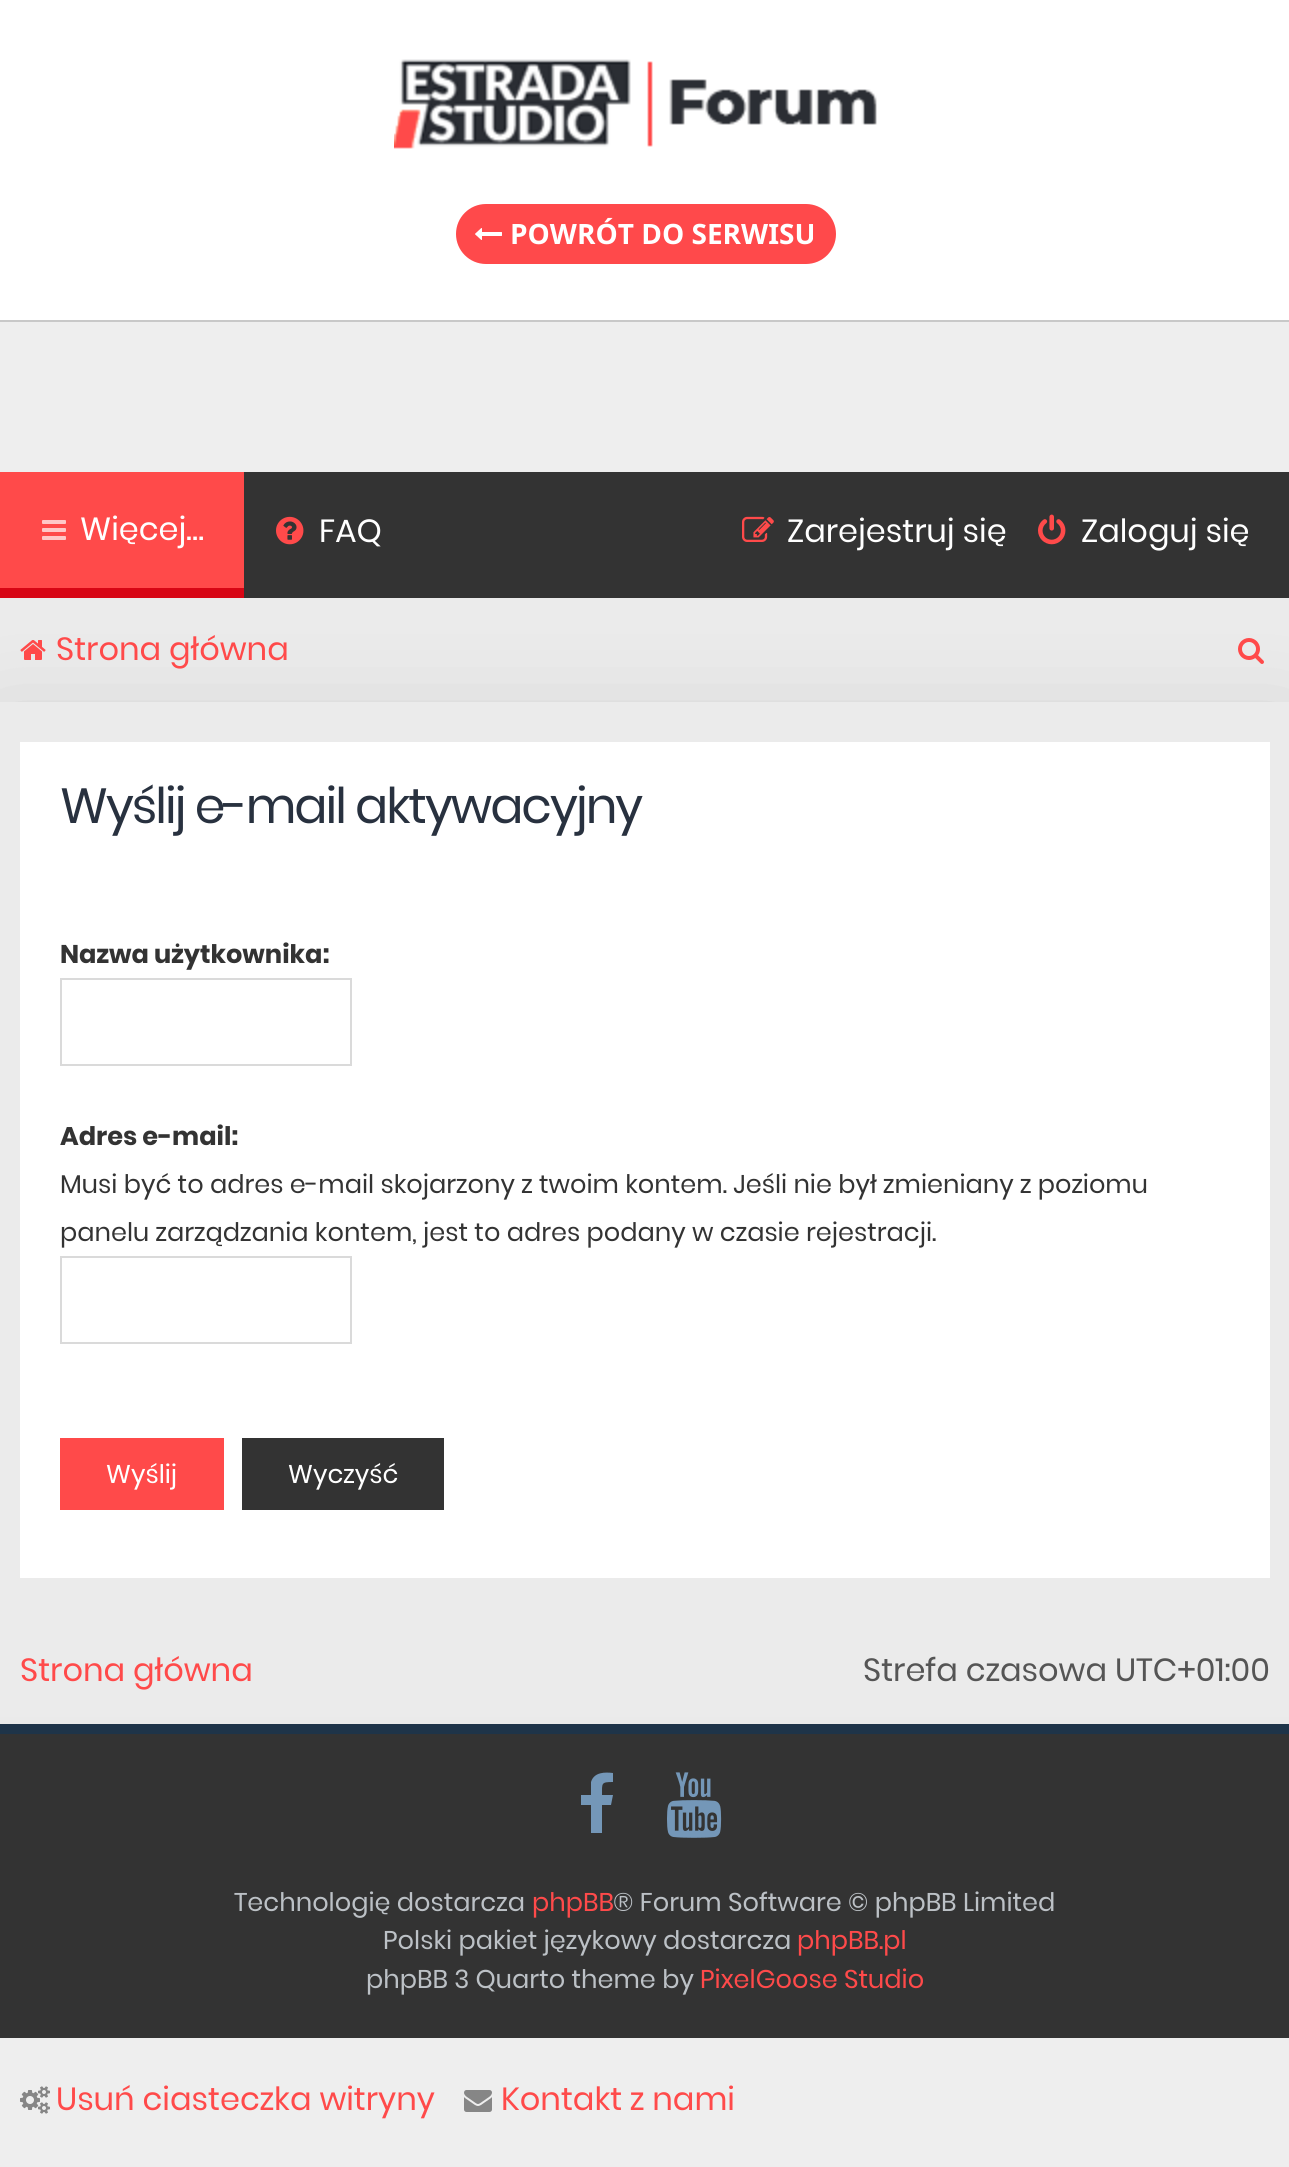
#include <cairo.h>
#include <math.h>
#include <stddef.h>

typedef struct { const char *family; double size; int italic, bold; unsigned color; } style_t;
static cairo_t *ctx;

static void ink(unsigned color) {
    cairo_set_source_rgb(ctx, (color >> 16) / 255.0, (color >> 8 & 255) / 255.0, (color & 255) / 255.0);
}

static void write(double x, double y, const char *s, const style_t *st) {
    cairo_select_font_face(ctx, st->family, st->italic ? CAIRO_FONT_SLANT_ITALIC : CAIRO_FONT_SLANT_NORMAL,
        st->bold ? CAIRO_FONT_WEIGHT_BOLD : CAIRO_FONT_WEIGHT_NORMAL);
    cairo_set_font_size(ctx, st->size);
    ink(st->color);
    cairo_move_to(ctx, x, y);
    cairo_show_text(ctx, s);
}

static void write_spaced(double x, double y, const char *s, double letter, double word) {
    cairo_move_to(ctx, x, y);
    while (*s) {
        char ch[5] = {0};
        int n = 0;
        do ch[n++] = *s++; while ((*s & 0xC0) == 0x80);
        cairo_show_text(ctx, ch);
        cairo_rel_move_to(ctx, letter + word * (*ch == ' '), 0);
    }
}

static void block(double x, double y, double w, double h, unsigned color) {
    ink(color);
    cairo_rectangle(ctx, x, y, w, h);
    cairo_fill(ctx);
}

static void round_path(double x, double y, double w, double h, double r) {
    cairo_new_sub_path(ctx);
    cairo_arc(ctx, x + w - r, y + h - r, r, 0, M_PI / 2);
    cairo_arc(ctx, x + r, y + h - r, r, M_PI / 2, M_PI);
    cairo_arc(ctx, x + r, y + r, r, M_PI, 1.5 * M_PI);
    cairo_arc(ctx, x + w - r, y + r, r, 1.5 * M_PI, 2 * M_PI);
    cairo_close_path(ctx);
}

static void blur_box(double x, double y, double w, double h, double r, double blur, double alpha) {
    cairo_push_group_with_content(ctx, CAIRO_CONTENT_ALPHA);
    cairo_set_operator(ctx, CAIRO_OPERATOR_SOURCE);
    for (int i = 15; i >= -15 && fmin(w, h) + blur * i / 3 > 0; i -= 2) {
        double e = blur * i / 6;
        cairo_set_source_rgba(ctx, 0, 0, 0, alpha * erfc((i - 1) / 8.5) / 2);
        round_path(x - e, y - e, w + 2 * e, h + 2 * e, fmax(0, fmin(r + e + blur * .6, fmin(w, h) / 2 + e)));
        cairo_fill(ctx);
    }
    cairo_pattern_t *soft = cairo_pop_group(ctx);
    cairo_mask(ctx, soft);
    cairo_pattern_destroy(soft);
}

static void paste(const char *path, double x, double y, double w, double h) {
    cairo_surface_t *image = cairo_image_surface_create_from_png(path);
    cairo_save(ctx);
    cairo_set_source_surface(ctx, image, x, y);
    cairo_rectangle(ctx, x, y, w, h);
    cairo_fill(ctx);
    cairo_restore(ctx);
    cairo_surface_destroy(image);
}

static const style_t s1 = {"Noto Sans", 28, 0, 1, 0xffffff};
static const style_t s2 = {"Poppins", 32, 0, 0, 0xffffff};
static const style_t s3 = {"Poppins", 32, 0, 0, 0xff4a4a};
static const style_t s4 = {"Poppins", 25.6, 0, 1, 0x333333};
static const style_t s5 = {"Poppins", 25.6, 0, 0, 0x333333};
static const style_t s6 = {"Poppins", 25.6, 0, 0, 0xffffff};
static const style_t s7 = {"Poppins", 32, 0, 0, 0x555555};
static const style_t s8 = {"Poppins", 25.6, 0, 0, 0xbcc1c6};
static const style_t s9 = {"Poppins", 25.6, 0, 0, 0xff4a4a};

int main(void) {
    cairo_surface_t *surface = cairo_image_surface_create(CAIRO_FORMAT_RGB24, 1289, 2167);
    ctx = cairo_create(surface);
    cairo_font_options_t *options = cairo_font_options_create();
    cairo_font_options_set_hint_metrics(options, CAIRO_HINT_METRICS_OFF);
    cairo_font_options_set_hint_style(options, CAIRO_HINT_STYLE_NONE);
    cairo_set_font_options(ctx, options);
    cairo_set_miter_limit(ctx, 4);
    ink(0xeeeeee);
    cairo_paint(ctx);
    block(0, 0, 1289, 320, 0xffffff);
    block(0, 320, 1289, 2, 0xc8c8c8);
    paste("pic1.png", 394, 59, 483, 90);
    ink(0xff494b);
    round_path(456, 204, 380, 60, 30);
    cairo_fill(ctx);
    paste("pic2.png", 475, 228, 27, 12);
    write(510, 244, "POWRÓT DO SERWISU", &s1);
    block(244, 472, 1045, 126, 0x333333);
    block(0, 472, 244, 116, 0xff4a4a);
    block(0, 598, 1289, 104, 0xebebeb);
    ink(0x333333);
    blur_box(0, 742, 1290, 916, 0, 50, 0.25);
    block(0, 588, 244, 10, 0xd70615);
    paste("pic3.png", 42, 520, 24, 20);
    write(80, 540, "Więcej…", &s2);
    paste("pic4.png", 276, 516, 28, 29);
    write(319, 542, "FAQ", &s2);
    paste("pic5.png", 742, 516, 32, 26);
    write(787, 542, "Zarejestruj się", &s2);
    paste("pic6.png", 1038, 514, 28, 31);
    write(1081, 542, "Zaloguj się", &s2);
    paste("pic7.png", 20, 640, 26, 20);
    write(56, 660, "Strona główna", &s3);
    paste("pic8.png", 1238, 638, 26, 26);
    block(0, 702, 1289, 1015, 0xebebeb);
    block(20, 742, 1250, 836, 0xffffff);
    cairo_set_font_size(ctx, 49.25);
    ink(0x28313f);
    write_spaced(60, 823, "Wyślij e-mail aktywacyjny", -2, 0);
    write(60, 963, "Nazwa użytkownika:", &s4);
    cairo_rectangle(ctx, 61, 979, 290, 86);
    ink(0xdadada);
    cairo_stroke(ctx);
    write(60, 1145, "Adres e-mail:", &s4);
    write(60, 1193, "Musi być to adres e-mail skojarzony z twoim kontem. Jeśli nie był zmieniany z poziomu", &s5);
    write(60, 1241, "panelu zarządzania kontem, jest to adres podany w czasie rejestracji.", &s5);
    cairo_rectangle(ctx, 61, 1257, 290, 86);
    ink(0xdadada);
    cairo_stroke(ctx);
    block(60, 1438, 164, 72, 0xff4a4a);
    write(106, 1483, "Wyślij", &s6);
    block(242, 1438, 202, 72, 0x333333);
    write(288, 1483, "Wyczyść", &s6);
    write(20, 1681, "Strona główna", &s3);
    write(863, 1681, "Strefa czasowa UTC+01:00", &s7);
    block(0, 1734, 1289, 304, 0x333333);
    block(0, 1724, 1289, 10, 0x1e3449);
    ink(0x7497b8);
    cairo_new_path(ctx);
    cairo_move_to(ctx, 613, 1773);
    cairo_line_to(ctx, 613, 1782);
    cairo_curve_to(ctx, 601, 1782, 602, 1783, 602, 1795);
    cairo_line_to(ctx, 613, 1795);
    cairo_line_to(ctx, 611, 1805);
    cairo_line_to(ctx, 602, 1805);
    cairo_line_to(ctx, 602, 1833);
    cairo_line_to(ctx, 591, 1833);
    cairo_line_to(ctx, 591, 1805);
    cairo_line_to(ctx, 581, 1805);
    cairo_line_to(ctx, 581, 1795);
    cairo_line_to(ctx, 591, 1795);
    cairo_line_to(ctx, 591, 1782);
    cairo_curve_to(ctx, 594, 1772, 605, 1772, 613, 1773);
    cairo_close_path(ctx);
    cairo_fill(ctx);
    paste("pic9.png", 667, 1772, 55, 66);
    write(234, 1911, "Technologię dostarcza", &s8);
    write(532, 1911, "phpBB", &s9);
    write(613, 1911, "® Forum Software © phpBB Limited", &s8);
    write(383, 1949, "Polski pakiet językowy dostarcza", &s8);
    write(797, 1949, "phpBB.pl", &s9);
    write(366, 1988, "phpBB 3 Quarto theme by", &s8);
    write(700, 1988, "PixelGoose Studio", &s9);
    paste("pic10.png", 20, 2086, 30, 28);
    write(56, 2110, "Usuń ciasteczka witryny", &s3);
    paste("pic11.png", 464, 2090, 28, 22);
    write(501, 2110, "Kontakt z nami", &s3);
    cairo_surface_write_to_png(surface, "screenshot.png");
    cairo_font_options_destroy(options);
    cairo_destroy(ctx);
    cairo_surface_destroy(surface);
    return 0;
}
